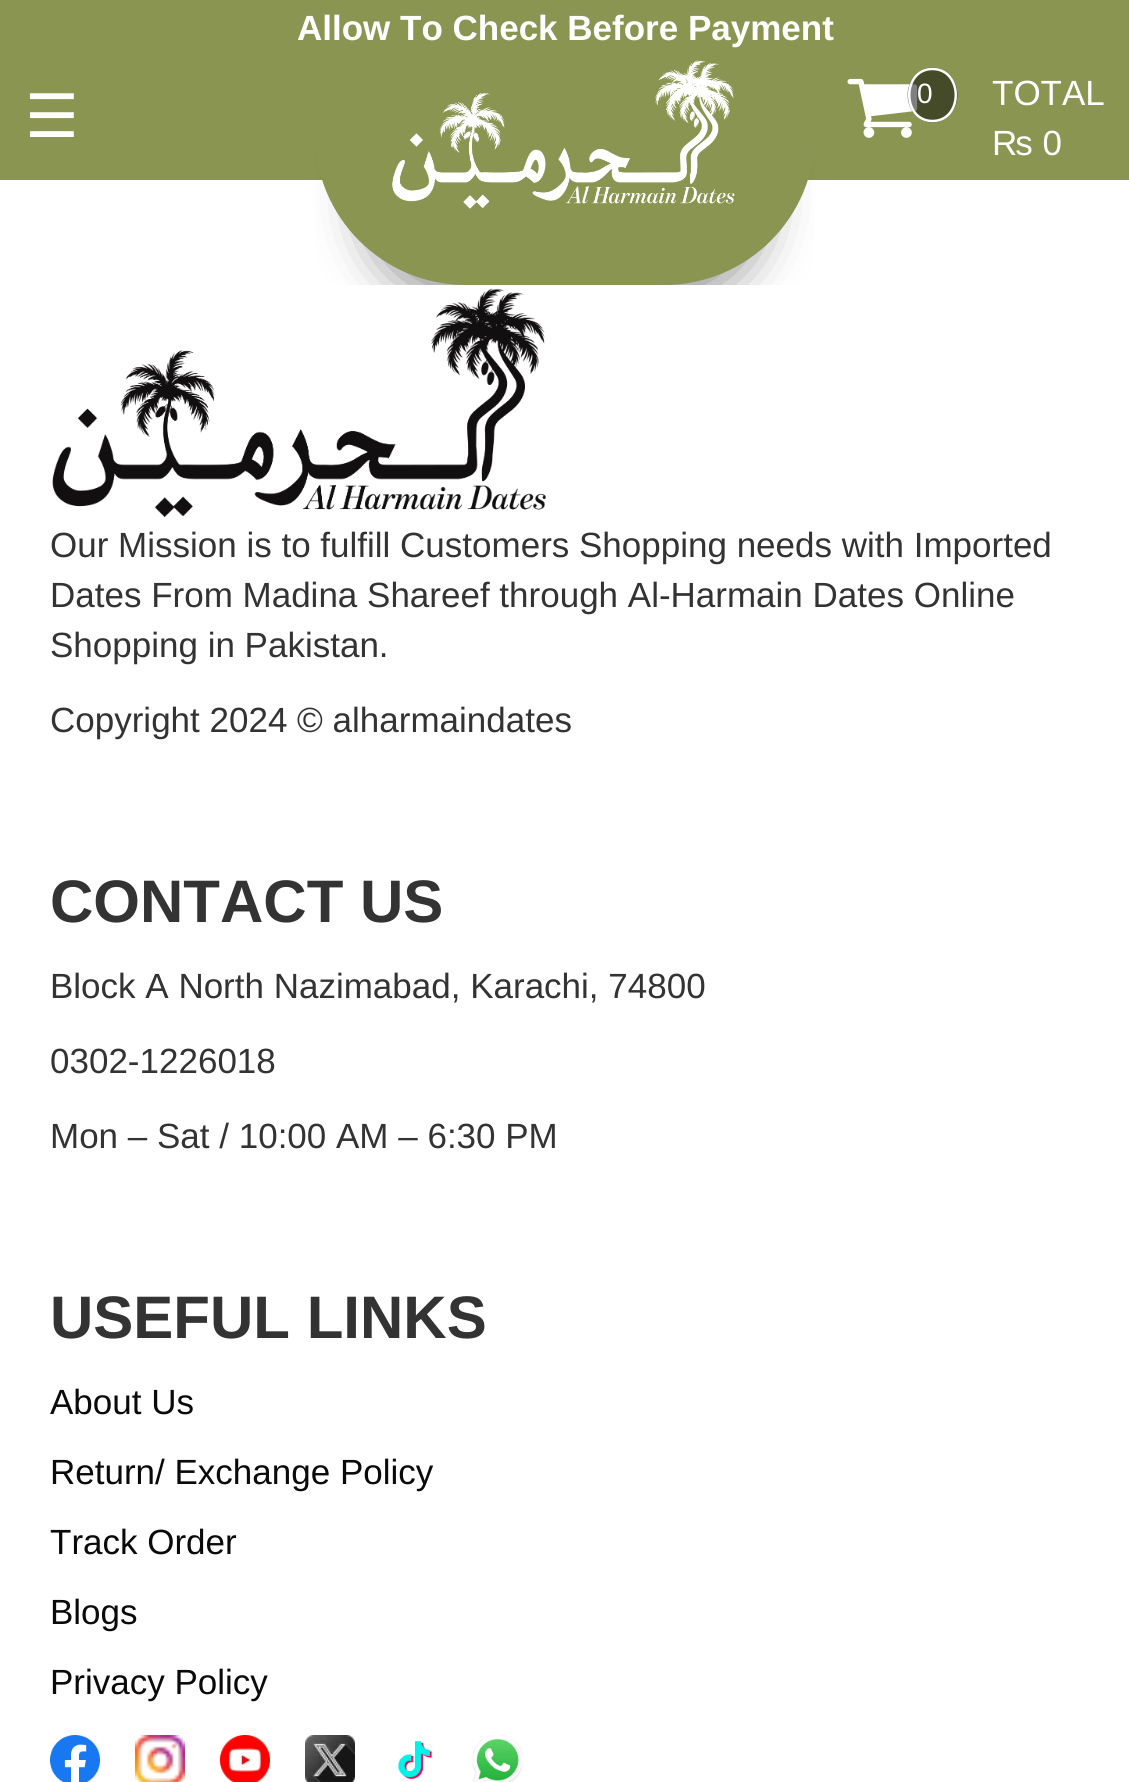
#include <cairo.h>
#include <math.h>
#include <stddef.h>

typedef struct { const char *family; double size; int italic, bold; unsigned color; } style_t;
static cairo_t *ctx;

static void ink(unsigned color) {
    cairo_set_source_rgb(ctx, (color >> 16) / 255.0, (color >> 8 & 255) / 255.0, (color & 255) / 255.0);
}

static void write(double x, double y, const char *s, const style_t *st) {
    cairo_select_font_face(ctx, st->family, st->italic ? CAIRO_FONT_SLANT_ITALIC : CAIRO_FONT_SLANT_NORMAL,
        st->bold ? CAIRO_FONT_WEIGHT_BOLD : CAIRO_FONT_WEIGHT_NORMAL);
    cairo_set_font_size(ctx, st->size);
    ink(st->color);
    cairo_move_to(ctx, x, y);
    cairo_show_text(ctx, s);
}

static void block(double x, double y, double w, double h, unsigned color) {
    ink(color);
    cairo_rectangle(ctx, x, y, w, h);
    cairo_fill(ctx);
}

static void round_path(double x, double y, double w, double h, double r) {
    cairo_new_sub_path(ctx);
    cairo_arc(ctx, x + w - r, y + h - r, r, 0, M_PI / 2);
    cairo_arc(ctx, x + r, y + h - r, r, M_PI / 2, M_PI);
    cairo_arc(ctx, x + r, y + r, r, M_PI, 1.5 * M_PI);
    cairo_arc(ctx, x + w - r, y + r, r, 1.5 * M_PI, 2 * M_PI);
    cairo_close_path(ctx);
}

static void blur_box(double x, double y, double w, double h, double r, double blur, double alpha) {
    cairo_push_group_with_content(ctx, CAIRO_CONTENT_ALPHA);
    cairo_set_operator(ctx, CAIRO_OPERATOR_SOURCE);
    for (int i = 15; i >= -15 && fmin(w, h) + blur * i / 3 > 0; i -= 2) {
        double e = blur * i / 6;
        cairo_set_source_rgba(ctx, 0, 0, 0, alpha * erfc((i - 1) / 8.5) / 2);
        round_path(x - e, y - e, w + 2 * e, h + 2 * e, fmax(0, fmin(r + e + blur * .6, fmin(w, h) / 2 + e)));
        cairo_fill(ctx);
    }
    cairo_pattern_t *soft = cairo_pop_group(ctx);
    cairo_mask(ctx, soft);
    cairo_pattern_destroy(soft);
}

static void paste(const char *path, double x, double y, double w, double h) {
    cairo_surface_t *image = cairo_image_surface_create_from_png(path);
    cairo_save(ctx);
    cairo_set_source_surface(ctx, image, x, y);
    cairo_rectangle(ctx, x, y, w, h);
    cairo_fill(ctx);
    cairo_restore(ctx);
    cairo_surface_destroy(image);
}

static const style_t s1 = {"Liberation Sans", 35, 0, 1, 0xffffff};
static const style_t s2 = {"DejaVu Sans", 60, 0, 0, 0xffffff};
static const style_t s3 = {"Liberation Sans", 28, 0, 0, 0xffffff};
static const style_t s4 = {"Liberation Sans", 35, 0, 0, 0xffffff};
static const style_t s5 = {"Liberation Sans", 35, 0, 0, 0x333333};
static const style_t s6 = {"Liberation Sans", 60, 0, 1, 0x333333};
static const style_t s7 = {"Liberation Sans", 35, 0, 0, 0x0a0a0a};

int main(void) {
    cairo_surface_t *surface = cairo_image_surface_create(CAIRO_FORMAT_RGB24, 1129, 1782);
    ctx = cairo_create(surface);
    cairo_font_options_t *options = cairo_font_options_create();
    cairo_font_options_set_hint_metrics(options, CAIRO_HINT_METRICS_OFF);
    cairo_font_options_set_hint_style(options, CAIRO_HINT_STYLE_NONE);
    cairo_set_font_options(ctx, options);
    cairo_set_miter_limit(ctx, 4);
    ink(0xffffff);
    cairo_paint(ctx);
    block(0, 0, 1129, 180, 0x8a9552);
    write(297, 40, "Allow To Check Before Payment", &s1);
    write(25, 137, "☰", &s2);
    paste("pic3.png", 52, 288, 494, 229);
    cairo_save(ctx);
    cairo_rectangle(ctx, 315, 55, 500, 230);
    cairo_clip(ctx);
    ink(0x000000);
    blur_box(365, 95, 400, 203, 101.5, 25, 0.45);
    cairo_restore(ctx);
    cairo_save(ctx);
    cairo_rectangle(ctx, 315, 55, 500, 230);
    cairo_clip(ctx);
    ink(0x8a9552);
    round_path(315, -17, 500, 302, 151);
    cairo_fill(ctx);
    cairo_restore(ctx);
    paste("pic1.png", 392, 60, 343, 149);
    paste("pic2.png", 847, 78, 71, 60);
    cairo_set_source_rgba(ctx, 0, 0, 0, 0.5);
    cairo_new_path(ctx);
    cairo_move_to(ctx, 932.5, 67.5);
    cairo_curve_to(ctx, 946.5, 67.5, 957.5, 80, 957.5, 95);
    cairo_curve_to(ctx, 957.5, 110, 946.5, 122.5, 932.5, 122.5);
    cairo_curve_to(ctx, 918.5, 122.5, 907.5, 110, 907.5, 95);
    cairo_curve_to(ctx, 907.5, 80, 918.5, 67.5, 932.5, 67.5);
    cairo_close_path(ctx);
    cairo_fill(ctx);
    cairo_new_path(ctx);
    cairo_move_to(ctx, 932.5, 69);
    cairo_curve_to(ctx, 963.5, 69, 963.5, 121, 932.5, 121);
    cairo_curve_to(ctx, 901.5, 121, 901.5, 69, 932.5, 69);
    cairo_close_path(ctx);
    ink(0xffffff);
    cairo_set_line_width(ctx, 2.5);
    cairo_stroke(ctx);
    write(917, 103, "0", &s3);
    write(992, 105, "TOTAL", &s4);
    write(992, 155, "₨ 0", &s4);
    write(50, 557, "Our Mission is to fulfill Customers Shopping needs with Imported", &s5);
    write(50, 607, "Dates From Madina Shareef through Al-Harmain Dates Online", &s5);
    write(50, 657, "Shopping in Pakistan.", &s5);
    write(50, 732, "Copyright 2024 © alharmaindates", &s5);
    write(50, 922, "CONTACT US", &s6);
    write(50, 998, "Block A North Nazimabad, Karachi, 74800", &s5);
    write(50, 1073, "0302-1226018", &s5);
    write(50, 1148, "Mon – Sat / 10:00 AM – 6:30 PM", &s5);
    write(50, 1338, "USEFUL LINKS", &s6);
    write(50, 1414, "About Us", &s7);
    write(50, 1484, "Return/ Exchange Policy", &s7);
    write(50, 1554, "Track Order", &s7);
    write(50, 1624, "Blogs", &s7);
    write(50, 1694, "Privacy Policy", &s7);
    paste("pic4.png", 50, 1735, 50, 47);
    paste("pic5.png", 135, 1735, 50, 47);
    paste("pic6.png", 220, 1735, 50, 47);
    paste("pic7.png", 305, 1735, 50, 47);
    paste("pic8.png", 397, 1741, 36, 38);
    paste("pic9.png", 472, 1735, 51, 47);
    cairo_surface_write_to_png(surface, "screenshot.png");
    cairo_font_options_destroy(options);
    cairo_destroy(ctx);
    cairo_surface_destroy(surface);
    return 0;
}
